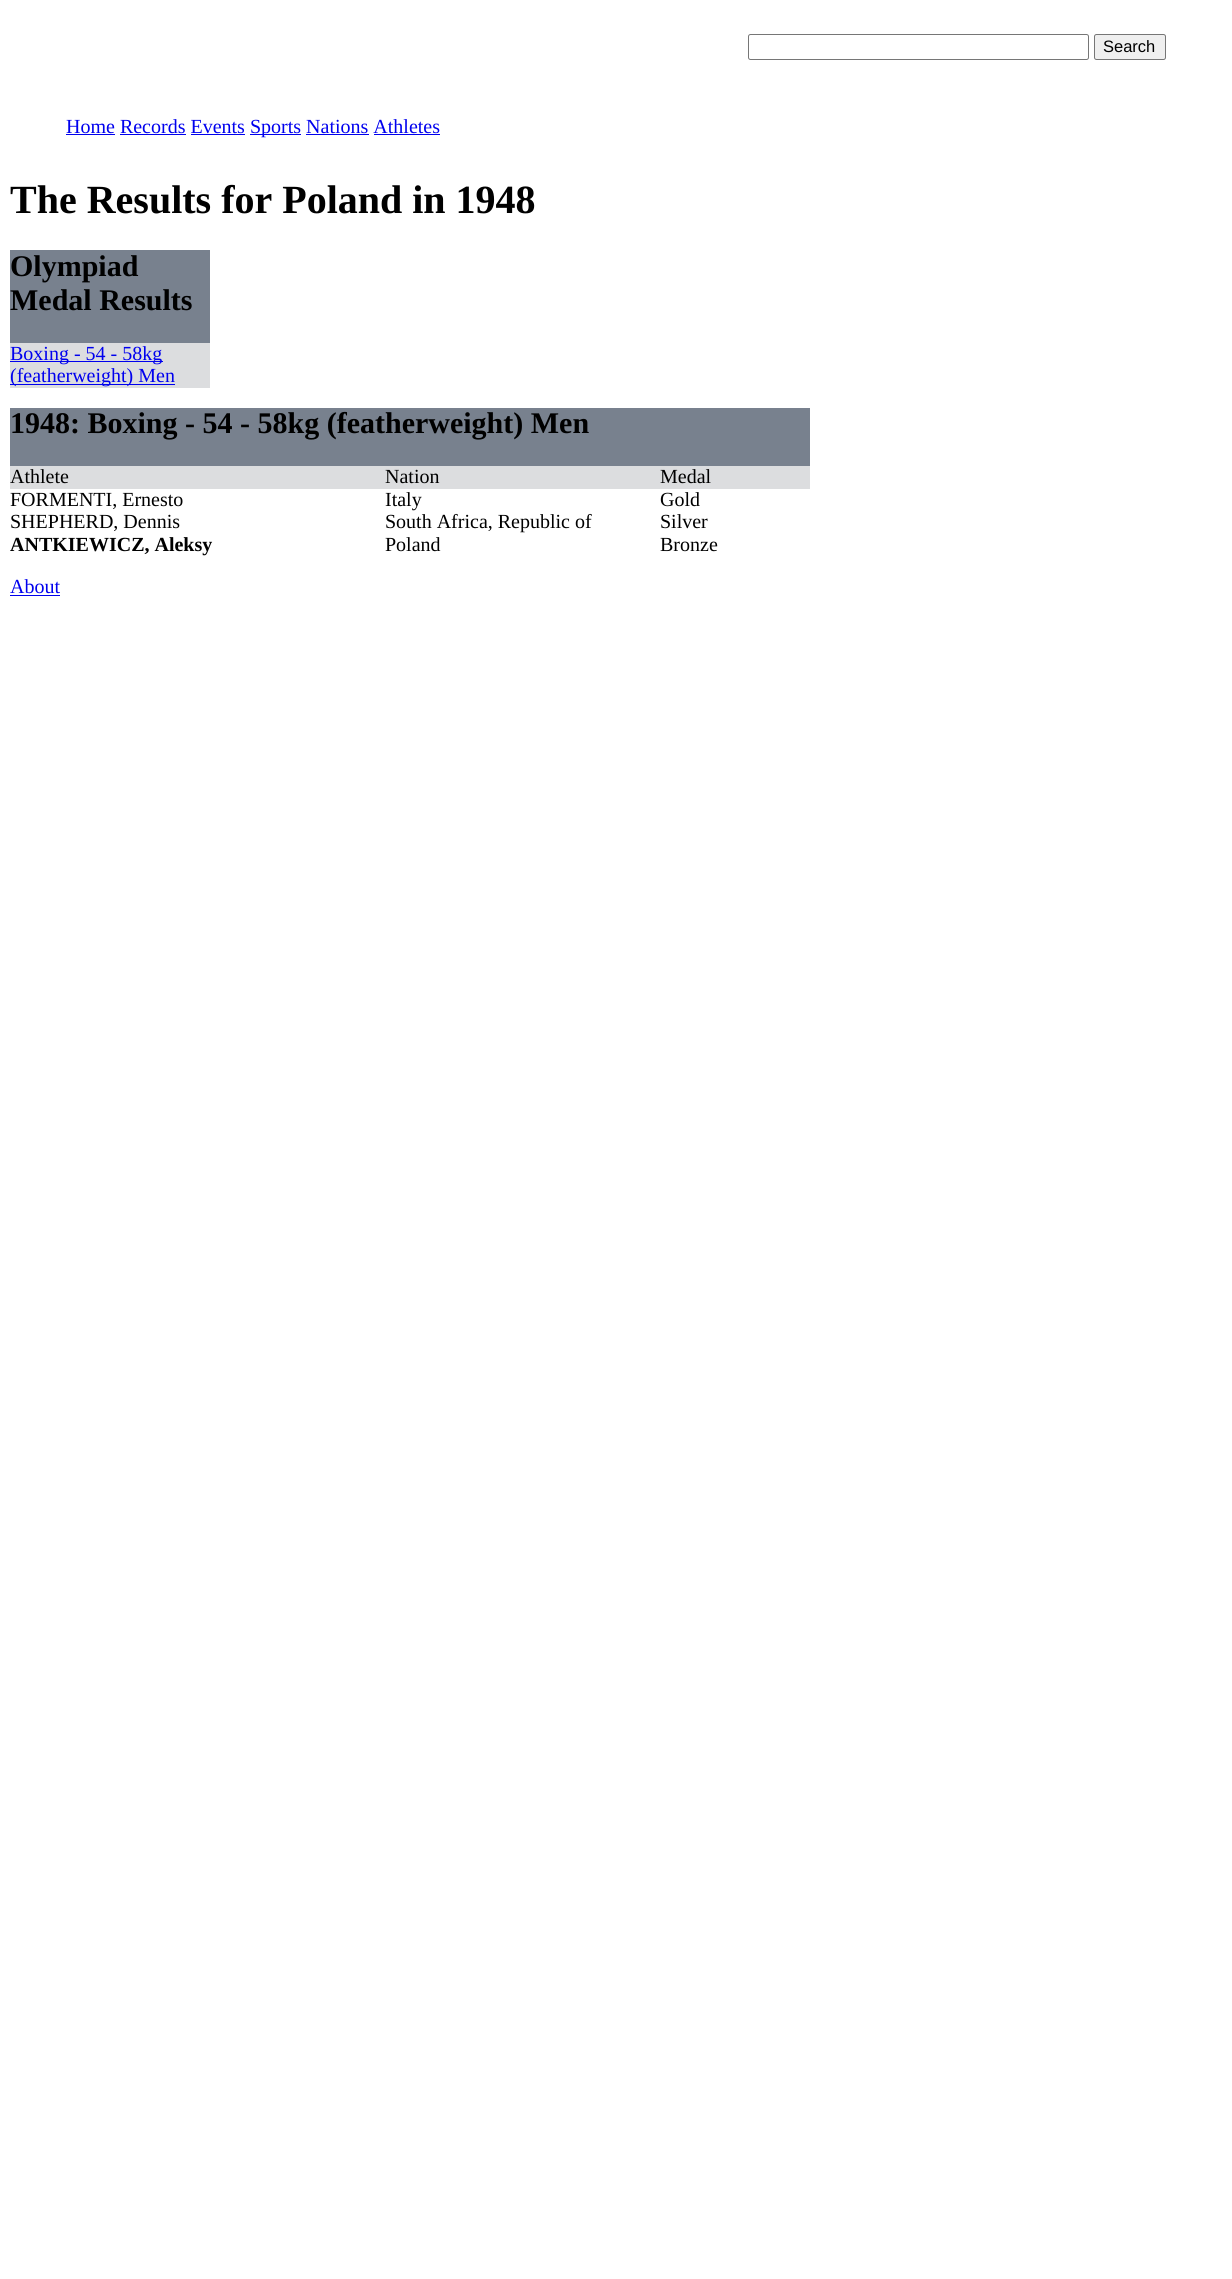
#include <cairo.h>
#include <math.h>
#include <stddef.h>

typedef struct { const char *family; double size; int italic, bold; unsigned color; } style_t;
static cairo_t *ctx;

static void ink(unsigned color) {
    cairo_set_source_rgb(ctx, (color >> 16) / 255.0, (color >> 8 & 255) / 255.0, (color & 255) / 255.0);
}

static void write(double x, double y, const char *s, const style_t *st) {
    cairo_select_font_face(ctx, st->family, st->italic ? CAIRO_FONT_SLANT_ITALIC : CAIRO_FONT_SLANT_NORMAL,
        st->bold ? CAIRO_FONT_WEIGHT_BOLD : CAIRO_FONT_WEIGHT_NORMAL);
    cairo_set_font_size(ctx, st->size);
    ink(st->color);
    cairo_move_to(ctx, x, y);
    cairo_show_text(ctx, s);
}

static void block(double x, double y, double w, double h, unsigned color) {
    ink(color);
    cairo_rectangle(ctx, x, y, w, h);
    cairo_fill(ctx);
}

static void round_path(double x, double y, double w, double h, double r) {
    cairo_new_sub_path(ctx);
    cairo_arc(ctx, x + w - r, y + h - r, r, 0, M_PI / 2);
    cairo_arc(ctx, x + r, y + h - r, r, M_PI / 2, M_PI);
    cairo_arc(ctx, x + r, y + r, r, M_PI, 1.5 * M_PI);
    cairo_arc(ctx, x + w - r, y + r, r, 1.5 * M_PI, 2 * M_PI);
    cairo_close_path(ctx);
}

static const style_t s1 = {"Liberation Sans", 16.5, 0, 0, 0x000000};
static const style_t s2 = {"Liberation Serif", 20, 0, 0, 0x0000ee};
static const style_t s3 = {"Liberation Serif", 40, 0, 1, 0x000000};
static const style_t s4 = {"Liberation Serif", 30, 0, 1, 0x000000};
static const style_t s5 = {"Liberation Serif", 20, 0, 0, 0x000000};
static const style_t s6 = {"Liberation Serif", 20, 0, 1, 0x000000};

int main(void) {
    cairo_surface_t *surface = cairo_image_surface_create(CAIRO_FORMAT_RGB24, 1232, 2279);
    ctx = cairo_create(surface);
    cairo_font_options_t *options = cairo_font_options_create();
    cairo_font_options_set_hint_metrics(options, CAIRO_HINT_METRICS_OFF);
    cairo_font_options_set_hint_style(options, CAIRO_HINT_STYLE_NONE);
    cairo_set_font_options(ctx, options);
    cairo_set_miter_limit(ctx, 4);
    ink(0xffffff);
    cairo_paint(ctx);
    round_path(748.5, 34.5, 340, 25, 2);
    ink(0x767676);
    cairo_set_line_width(ctx, 1);
    cairo_stroke(ctx);
    ink(0xefefef);
    round_path(1094.5, 34.5, 71, 25, 2);
    cairo_fill_preserve(ctx);
    ink(0x767676);
    cairo_stroke(ctx);
    write(1103, 52, "Search", &s1);
    write(66, 133, "Home Records Events", &s2);
    block(66, 134, 49, 1, 0x0000ee);
    block(250, 134, 51, 1, 0x0000ee);
    write(250, 133, "Sports Nations Athletes", &s2);
    block(120, 134, 66, 1, 0x0000ee);
    block(191, 134, 54, 1, 0x0000ee);
    block(306, 134, 63, 1, 0x0000ee);
    block(374, 134, 66, 1, 0x0000ee);
    write(10, 213, "The Results for Poland in 1948", &s3);
    block(10, 250, 200, 93, 0x78818e);
    write(10, 276, "Olympiad", &s4);
    write(10, 310, "Medal Results", &s4);
    block(10, 343, 200, 45, 0xdcdddf);
    block(10, 361, 153, 1, 0x0000ee);
    write(10, 360, "Boxing - 54 - 58kg", &s2);
    block(10, 384, 165, 1, 0x0000ee);
    write(10, 382, "(featherweight) Men", &s2);
    block(10, 408, 800, 58, 0x78818e);
    write(10, 433, "1948: Boxing - 54 - 58kg (featherweight) Men", &s4);
    block(10, 466, 800, 23, 0xdcdddf);
    write(10, 483, "Athlete", &s5);
    write(385, 483, "Nation", &s5);
    write(660, 483, "Medal", &s5);
    write(10, 506, "FORMENTI, Ernesto", &s5);
    write(385, 506, "Italy", &s5);
    write(660, 506, "Gold", &s5);
    write(10, 528, "SHEPHERD, Dennis", &s5);
    write(385, 528, "South Africa, Republic of", &s5);
    write(660, 528, "Silver", &s5);
    write(10, 551, "ANTKIEWICZ, Aleksy", &s6);
    write(385, 551, "Poland", &s5);
    write(660, 551, "Bronze", &s5);
    write(10, 593, "About", &s2);
    block(10, 595, 50, 1, 0x0000ee);
    cairo_surface_write_to_png(surface, "screenshot.png");
    cairo_font_options_destroy(options);
    cairo_destroy(ctx);
    cairo_surface_destroy(surface);
    return 0;
}
